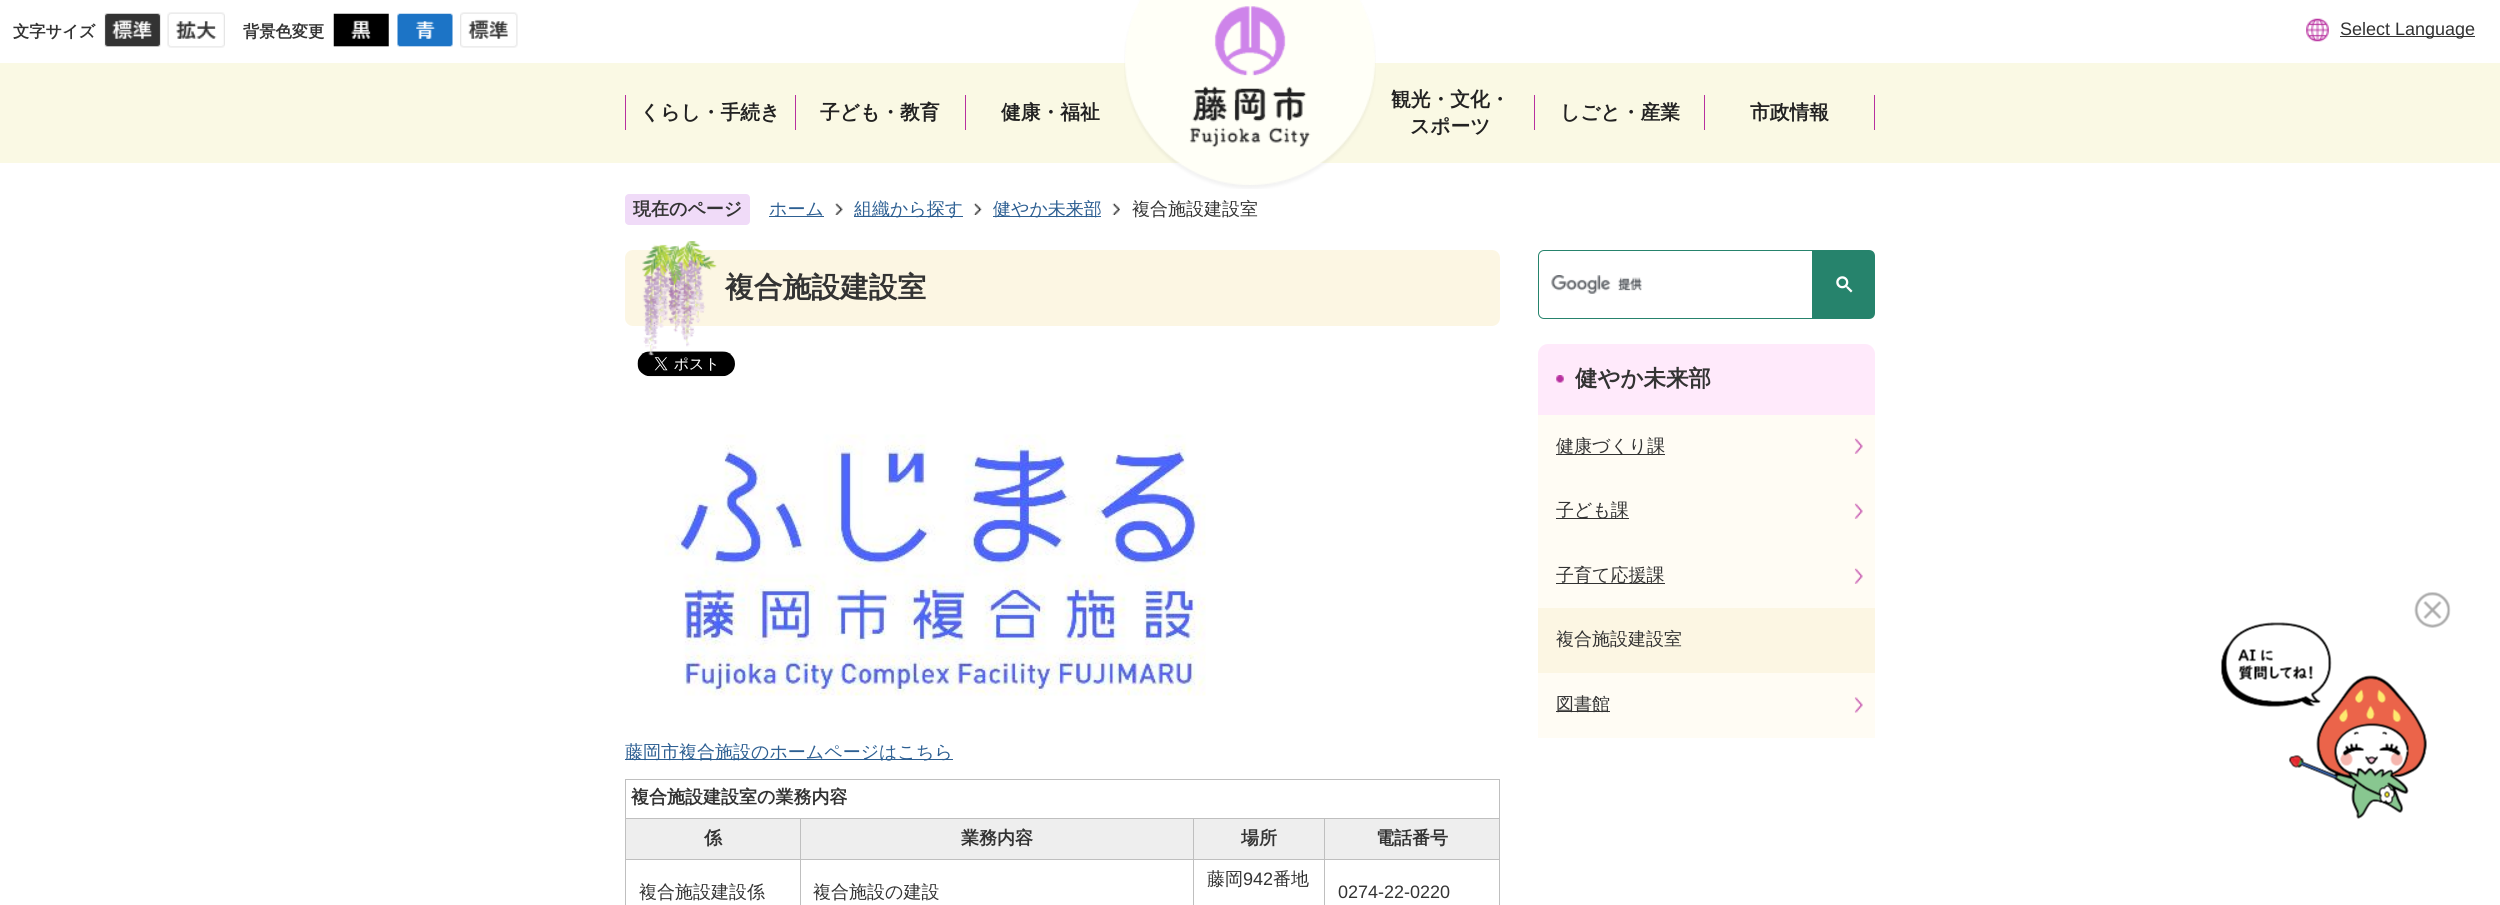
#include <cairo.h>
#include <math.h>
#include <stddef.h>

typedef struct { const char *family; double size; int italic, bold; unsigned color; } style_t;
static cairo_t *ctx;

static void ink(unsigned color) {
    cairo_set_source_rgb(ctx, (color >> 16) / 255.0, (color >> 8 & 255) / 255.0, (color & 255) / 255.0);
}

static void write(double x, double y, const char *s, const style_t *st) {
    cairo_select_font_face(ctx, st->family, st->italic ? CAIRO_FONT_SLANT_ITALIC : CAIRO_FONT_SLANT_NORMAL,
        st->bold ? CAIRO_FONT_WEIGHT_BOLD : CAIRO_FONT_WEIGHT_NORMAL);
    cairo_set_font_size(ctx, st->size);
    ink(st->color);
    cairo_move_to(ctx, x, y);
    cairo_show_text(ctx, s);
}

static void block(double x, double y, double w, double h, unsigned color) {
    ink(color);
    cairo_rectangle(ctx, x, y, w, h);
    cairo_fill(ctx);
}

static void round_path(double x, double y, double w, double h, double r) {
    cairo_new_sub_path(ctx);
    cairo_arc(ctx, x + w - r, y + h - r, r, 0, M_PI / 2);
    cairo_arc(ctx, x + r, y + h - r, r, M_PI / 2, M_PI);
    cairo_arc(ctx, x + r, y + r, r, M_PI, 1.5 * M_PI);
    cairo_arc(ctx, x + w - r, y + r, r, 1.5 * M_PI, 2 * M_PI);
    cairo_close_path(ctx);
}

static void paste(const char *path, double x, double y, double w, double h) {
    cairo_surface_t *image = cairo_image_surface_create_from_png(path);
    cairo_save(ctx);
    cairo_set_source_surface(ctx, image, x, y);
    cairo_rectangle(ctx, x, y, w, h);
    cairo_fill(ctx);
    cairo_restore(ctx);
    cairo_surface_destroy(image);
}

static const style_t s1 = {"WenQuanYi Zen Hei", 16.25, 0, 1, 0x333333};
static const style_t s2 = {"Liberation Sans", 18, 0, 0, 0x333333};
static const style_t s3 = {"WenQuanYi Zen Hei", 19.75, 0, 1, 0x222222};
static const style_t s4 = {"WenQuanYi Zen Hei", 18, 0, 1, 0x333333};
static const style_t s5 = {"WenQuanYi Zen Hei Medium", 18, 0, 0, 0x2d5f92};
static const style_t s6 = {"WenQuanYi Zen Hei Medium", 18, 0, 0, 0x333333};
static const style_t s7 = {"WenQuanYi Zen Hei", 28.75, 0, 1, 0x333333};
static const style_t s8 = {"WenQuanYi Zen Hei", 22.5, 0, 1, 0x333333};

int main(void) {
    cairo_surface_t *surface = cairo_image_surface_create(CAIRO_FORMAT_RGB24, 2500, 905);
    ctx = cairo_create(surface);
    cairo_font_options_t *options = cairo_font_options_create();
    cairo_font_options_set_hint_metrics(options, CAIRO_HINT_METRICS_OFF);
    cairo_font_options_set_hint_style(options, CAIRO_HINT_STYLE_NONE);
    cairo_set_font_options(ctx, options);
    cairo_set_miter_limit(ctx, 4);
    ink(0xffffff);
    cairo_paint(ctx);
    block(0, 63, 2500, 100, 0xfaf9e4);
    paste("pic1.png", 1124, 0, 252, 189);
    write(13, 37, "文字サイズ", &s1);
    paste("pic2.png", 104, 13, 57, 34);
    paste("pic3.png", 167, 12, 58, 36);
    write(243, 37, "背景色変更", &s1);
    paste("pic4.png", 333, 13, 56, 34);
    paste("pic5.png", 397, 13, 56, 34);
    paste("pic6.png", 460, 12, 58, 36);
    paste("pic7.png", 2306, 18, 23, 24);
    block(2340, 36, 135, 1, 0x333333);
    write(2340, 35, "Select Language", &s2);
    block(625, 95, 1, 35, 0xb8309f);
    write(640, 119, "くらし・手続き", &s3);
    block(795, 95, 1, 35, 0xb8309f);
    write(820, 119, "子ども・教育", &s3);
    block(965, 95, 1, 35, 0xb8309f);
    write(1001, 119, "健康・福祉", &s3);
    write(1391, 106, "観光・文化・", &s3);
    write(1410, 133, "スポーツ", &s3);
    block(1534, 95, 1, 35, 0xb8309f);
    write(1560, 119, "しごと・産業", &s3);
    block(1704, 95, 1, 35, 0xb8309f);
    write(1750, 119, "市政情報", &s3);
    block(1874, 95, 1, 35, 0xb8309f);
    ink(0xf0dbf8);
    round_path(625, 194, 125, 31, 4);
    cairo_fill(ctx);
    write(633, 215, "現在のページ", &s4);
    block(769, 216, 55, 1, 0x2d5f92);
    write(769, 215, "ホーム", &s5);
    paste("pic8.png", 835, 203, 8, 12);
    block(854, 216, 109, 1, 0x2d5f92);
    write(854, 215, "組織から探す", &s5);
    paste("pic9.png", 973, 203, 9, 12);
    block(993, 216, 108, 1, 0x2d5f92);
    write(993, 215, "健やか未来部", &s5);
    paste("pic10.png", 1112, 203, 8, 12);
    write(1132, 215, "複合施設建設室", &s6);
    ink(0xfcf6e3);
    round_path(625, 250, 875, 76, 8);
    cairo_fill(ctx);
    paste("pic12.png", 637, 351, 98, 26);
    paste("pic11.png", 642, 241, 75, 115);
    write(725, 297, "複合施設建設室", &s7);
    paste("pic13.png", 664, 434, 542, 262);
    block(625, 759, 328, 1, 0x2d5f92);
    write(625, 758, "藤岡市複合施設のホームページはこちら", &s5);
    block(625, 779, 875, 1, 0xbfbfbf);
    block(1499, 779, 1, 126, 0xbfbfbf);
    block(625, 779, 1, 126, 0xbfbfbf);
    write(631, 803, "複合施設建設室の業務内容", &s4);
    block(626, 819, 174, 40, 0xeeeeee);
    block(1324, 818, 176, 1, 0xbfbfbf);
    block(1324, 859, 176, 1, 0xbfbfbf);
    block(1324, 859, 1, 46, 0xbfbfbf);
    block(1193, 859, 132, 1, 0xbfbfbf);
    block(1324, 818, 1, 42, 0xbfbfbf);
    block(1193, 818, 132, 1, 0xbfbfbf);
    block(1193, 859, 1, 46, 0xbfbfbf);
    block(800, 859, 394, 1, 0xbfbfbf);
    block(1193, 818, 1, 42, 0xbfbfbf);
    block(800, 818, 394, 1, 0xbfbfbf);
    block(800, 859, 1, 46, 0xbfbfbf);
    block(625, 859, 176, 1, 0xbfbfbf);
    block(800, 818, 1, 42, 0xbfbfbf);
    block(625, 818, 176, 1, 0xbfbfbf);
    write(704, 844, "係", &s4);
    block(801, 819, 392, 40, 0xeeeeee);
    write(961, 844, "業務内容", &s4);
    block(1194, 819, 130, 40, 0xeeeeee);
    write(1241, 844, "場所", &s4);
    block(1325, 819, 174, 40, 0xeeeeee);
    write(1376, 844, "電話番号", &s4);
    write(1207, 885, "藤岡", &s6);
    write(1243, 885, "942", &s2);
    write(1273, 885, "番地", &s6);
    write(639, 898, "複合施設建設係", &s6);
    write(813, 898, "複合施設の建設", &s6);
    write(1338, 898, "0274-22-0220", &s2);
    cairo_new_path(ctx);
    cairo_move_to(ctx, 1544, 250.5);
    cairo_line_to(ctx, 1812.5, 250.5);
    cairo_line_to(ctx, 1812.5, 318.5);
    cairo_line_to(ctx, 1544, 318.5);
    cairo_curve_to(ctx, 1541, 318.5, 1538.5, 316, 1538.5, 313);
    cairo_line_to(ctx, 1538.5, 256);
    cairo_curve_to(ctx, 1538.5, 253, 1541, 250.5, 1544, 250.5);
    cairo_close_path(ctx);
    ink(0x26836c);
    cairo_set_line_width(ctx, 1);
    cairo_stroke(ctx);
    paste("pic14.png", 1551, 275, 91, 19);
    cairo_new_path(ctx);
    cairo_move_to(ctx, 1813, 250);
    cairo_line_to(ctx, 1869, 250);
    cairo_curve_to(ctx, 1872.5, 250, 1875, 252.5, 1875, 256);
    cairo_line_to(ctx, 1875, 313);
    cairo_curve_to(ctx, 1875, 316.5, 1872.5, 319, 1869, 319);
    cairo_line_to(ctx, 1813, 319);
    cairo_close_path(ctx);
    cairo_fill(ctx);
    paste("pic15.png", 1836, 276, 17, 17);
    ink(0xffeafb);
    cairo_new_path(ctx);
    cairo_move_to(ctx, 1548, 344);
    cairo_line_to(ctx, 1865, 344);
    cairo_curve_to(ctx, 1870.5, 344, 1875, 348.5, 1875, 354);
    cairo_line_to(ctx, 1875, 415);
    cairo_line_to(ctx, 1538, 415);
    cairo_line_to(ctx, 1538, 354);
    cairo_curve_to(ctx, 1538, 348.5, 1542.5, 344, 1548, 344);
    cairo_close_path(ctx);
    cairo_fill(ctx);
    paste("pic16.png", 1556, 375, 8, 8);
    write(1575, 386, "健やか未来部", &s8);
    block(1538, 415, 337, 193, 0xfffcf4);
    paste("pic17.png", 1854, 438, 9, 16);
    block(1556, 454, 109, 1, 0x333333);
    write(1556, 452, "健康づくり課", &s6);
    paste("pic17.png", 1854, 503, 9, 16);
    block(1556, 518, 73, 1, 0x333333);
    write(1556, 516, "子ども課", &s6);
    paste("pic17.png", 1854, 568, 9, 16);
    block(1556, 583, 109, 1, 0x333333);
    write(1556, 581, "子育て応援課", &s6);
    block(1538, 608, 337, 65, 0xfcf6e3);
    write(1556, 645, "複合施設建設室", &s6);
    block(1538, 673, 337, 65, 0xfffcf4);
    paste("pic18.png", 1854, 697, 9, 16);
    block(1556, 711, 54, 1, 0x333333);
    write(1556, 710, "図書館", &s6);
    paste("pic19.png", 2221, 592, 230, 227);
    cairo_surface_write_to_png(surface, "screenshot.png");
    cairo_font_options_destroy(options);
    cairo_destroy(ctx);
    cairo_surface_destroy(surface);
    return 0;
}
